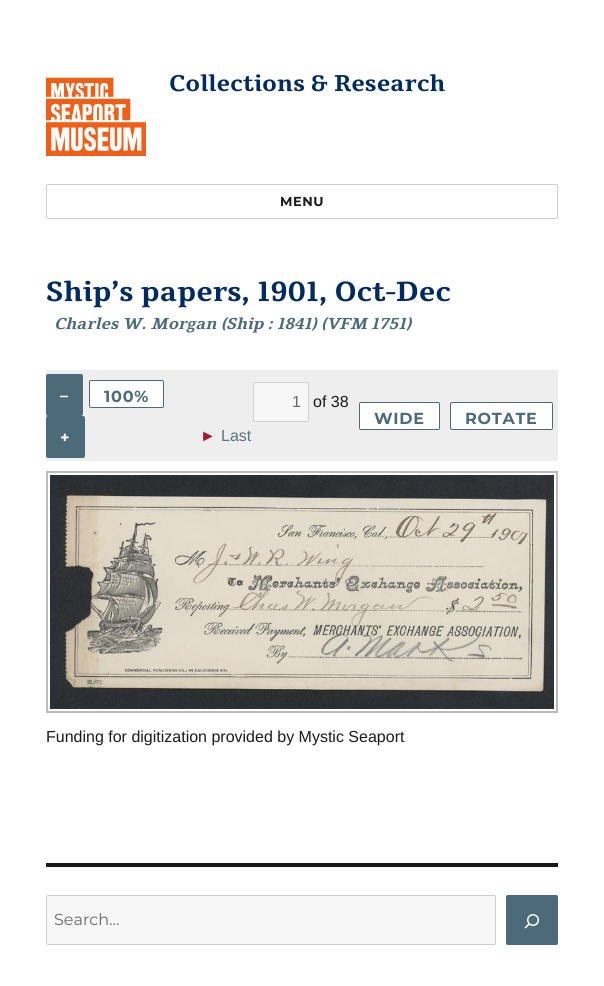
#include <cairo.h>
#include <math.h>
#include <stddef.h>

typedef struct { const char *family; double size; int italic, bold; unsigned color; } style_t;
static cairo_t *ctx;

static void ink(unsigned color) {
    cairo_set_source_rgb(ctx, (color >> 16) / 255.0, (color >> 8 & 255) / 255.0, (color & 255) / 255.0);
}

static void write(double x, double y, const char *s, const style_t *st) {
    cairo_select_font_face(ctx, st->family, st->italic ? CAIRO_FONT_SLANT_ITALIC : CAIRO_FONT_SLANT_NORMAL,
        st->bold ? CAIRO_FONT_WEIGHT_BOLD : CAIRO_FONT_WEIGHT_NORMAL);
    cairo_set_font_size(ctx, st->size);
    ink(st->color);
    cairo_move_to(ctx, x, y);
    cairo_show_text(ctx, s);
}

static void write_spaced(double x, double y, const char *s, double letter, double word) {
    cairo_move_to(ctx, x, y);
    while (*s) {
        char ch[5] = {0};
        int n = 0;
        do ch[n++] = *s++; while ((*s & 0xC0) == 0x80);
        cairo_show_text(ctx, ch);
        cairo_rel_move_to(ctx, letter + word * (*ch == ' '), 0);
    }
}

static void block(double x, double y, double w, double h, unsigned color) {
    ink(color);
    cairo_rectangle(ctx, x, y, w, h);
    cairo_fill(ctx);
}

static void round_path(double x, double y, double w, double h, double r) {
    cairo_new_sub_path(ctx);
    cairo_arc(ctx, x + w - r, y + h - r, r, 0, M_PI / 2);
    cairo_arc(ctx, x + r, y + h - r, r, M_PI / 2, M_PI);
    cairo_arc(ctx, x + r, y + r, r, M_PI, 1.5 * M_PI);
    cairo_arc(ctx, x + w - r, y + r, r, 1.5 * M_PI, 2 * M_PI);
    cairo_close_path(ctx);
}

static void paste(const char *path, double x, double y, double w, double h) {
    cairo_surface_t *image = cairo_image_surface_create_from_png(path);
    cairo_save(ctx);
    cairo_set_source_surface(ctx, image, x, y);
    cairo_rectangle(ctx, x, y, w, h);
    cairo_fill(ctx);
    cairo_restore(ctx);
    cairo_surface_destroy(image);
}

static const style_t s1 = {"Tienne", 23, 0, 1, 0x002b60};
static const style_t s2 = {"Tienne", 28, 0, 1, 0x002b60};
static const style_t s3 = {"Tienne", 16, 1, 1, 0x4d6a7b};
static const style_t s4 = {"Liberation Sans", 16, 0, 0, 0x686868};
static const style_t s5 = {"Liberation Sans", 16, 0, 0, 0x1a1a1a};
static const style_t s6 = {"Liberation Sans", 16, 0, 0, 0xa61a32};
static const style_t s7 = {"Liberation Sans", 16, 0, 0, 0x587485};
static const style_t s8 = {"Montserrat", 16, 0, 0, 0x686868};

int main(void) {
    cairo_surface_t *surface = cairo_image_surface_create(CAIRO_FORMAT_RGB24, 604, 986);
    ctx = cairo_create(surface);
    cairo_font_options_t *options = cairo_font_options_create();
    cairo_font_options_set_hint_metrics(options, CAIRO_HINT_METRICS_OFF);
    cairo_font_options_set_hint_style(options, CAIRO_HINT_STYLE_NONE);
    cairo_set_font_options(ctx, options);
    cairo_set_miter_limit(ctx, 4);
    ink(0xffffff);
    cairo_paint(ctx);
    paste("pic1.png", 46, 77, 100, 79);
    write(169, 91, "Collections & Research", &s1);
    round_path(46.5, 184.5, 511, 34, 1.5);
    ink(0xd1d1d1);
    cairo_set_line_width(ctx, 1);
    cairo_stroke(ctx);
    cairo_select_font_face(ctx, "Montserrat", CAIRO_FONT_SLANT_NORMAL, CAIRO_FONT_WEIGHT_BOLD);
    cairo_set_font_size(ctx, 13);
    ink(0x1a1a1a);
    write_spaced(280, 206, "MENU", 0.5, 0);
    write(46, 301, "Ship’s papers, 1901, Oct-Dec", &s2);
    write(54, 329, "Charles W. Morgan (Ship : 1841) (VFM 1751)", &s3);
    block(46, 370, 512, 91, 0xeeeeee);
    ink(0x4d6a7b);
    round_path(46, 374, 37, 42, 2);
    cairo_fill(ctx);
    cairo_select_font_face(ctx, "Montserrat", CAIRO_FONT_SLANT_NORMAL, CAIRO_FONT_WEIGHT_BOLD);
    ink(0xffffff);
    write_spaced(60, 401, "–", 0.75, 0);
    round_path(89.5, 380.5, 74, 27, 1.5);
    cairo_fill_preserve(ctx);
    ink(0x4d6a7b);
    cairo_stroke(ctx);
    write_spaced(104, 402, "100%", 0.75, 0);
    round_path(46, 416, 39, 42, 2);
    cairo_fill(ctx);
    ink(0xffffff);
    write_spaced(60, 443, "+", 0.75, 0);
    ink(0xf7f7f7);
    round_path(253.5, 382.5, 55, 39, 1.5);
    cairo_fill_preserve(ctx);
    ink(0xd1d1d1);
    cairo_stroke(ctx);
    write(292, 407, "1", &s4);
    write(313, 407, "of 38", &s5);
    write(200, 441, "►", &s6);
    write(221, 441, "Last", &s7);
    ink(0xffffff);
    round_path(359.5, 402.5, 80, 27, 1.5);
    cairo_fill_preserve(ctx);
    ink(0x4d6a7b);
    cairo_stroke(ctx);
    cairo_select_font_face(ctx, "Montserrat", CAIRO_FONT_SLANT_NORMAL, CAIRO_FONT_WEIGHT_BOLD);
    write_spaced(374, 424, "WIDE", 0.75, 0);
    ink(0xffffff);
    round_path(450.5, 402.5, 102, 27, 1.5);
    cairo_fill_preserve(ctx);
    ink(0x4d6a7b);
    cairo_stroke(ctx);
    write_spaced(465, 424, "ROTATE", 0.75, 0);
    cairo_rectangle(ctx, 47, 472, 510, 240);
    ink(0xbbbbbb);
    cairo_set_line_width(ctx, 2);
    cairo_stroke(ctx);
    paste("pic2.png", 50, 475, 504, 234);
    write(46, 742, "Funding for digitization provided by Mystic Seaport", &s5);
    block(46, 863, 512, 4, 0x1a1a1a);
    ink(0xf7f7f7);
    round_path(46.5, 895.5, 449, 49, 1.5);
    cairo_fill_preserve(ctx);
    ink(0xd1d1d1);
    cairo_set_line_width(ctx, 1);
    cairo_stroke(ctx);
    write(54, 925, "Search...", &s8);
    ink(0x4d6a7b);
    round_path(506, 895, 52, 50, 2);
    cairo_fill(ctx);
    paste("pic3.png", 524, 914, 16, 15);
    cairo_surface_write_to_png(surface, "screenshot.png");
    cairo_font_options_destroy(options);
    cairo_destroy(ctx);
    cairo_surface_destroy(surface);
    return 0;
}
